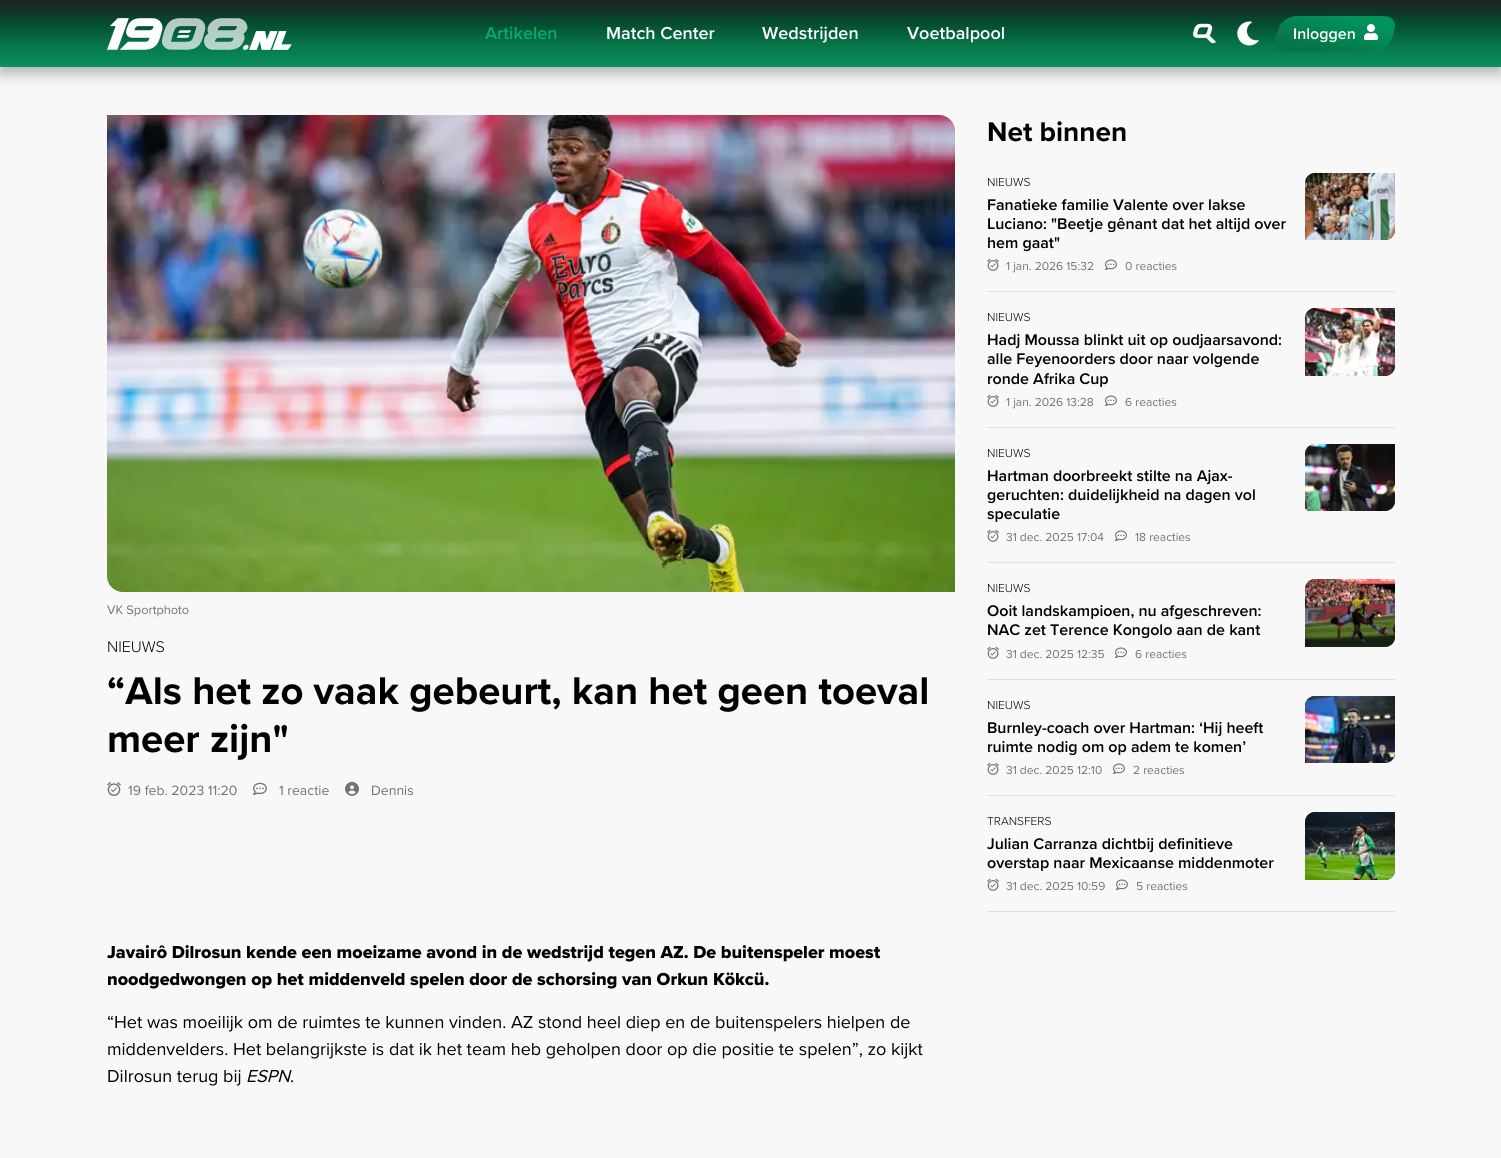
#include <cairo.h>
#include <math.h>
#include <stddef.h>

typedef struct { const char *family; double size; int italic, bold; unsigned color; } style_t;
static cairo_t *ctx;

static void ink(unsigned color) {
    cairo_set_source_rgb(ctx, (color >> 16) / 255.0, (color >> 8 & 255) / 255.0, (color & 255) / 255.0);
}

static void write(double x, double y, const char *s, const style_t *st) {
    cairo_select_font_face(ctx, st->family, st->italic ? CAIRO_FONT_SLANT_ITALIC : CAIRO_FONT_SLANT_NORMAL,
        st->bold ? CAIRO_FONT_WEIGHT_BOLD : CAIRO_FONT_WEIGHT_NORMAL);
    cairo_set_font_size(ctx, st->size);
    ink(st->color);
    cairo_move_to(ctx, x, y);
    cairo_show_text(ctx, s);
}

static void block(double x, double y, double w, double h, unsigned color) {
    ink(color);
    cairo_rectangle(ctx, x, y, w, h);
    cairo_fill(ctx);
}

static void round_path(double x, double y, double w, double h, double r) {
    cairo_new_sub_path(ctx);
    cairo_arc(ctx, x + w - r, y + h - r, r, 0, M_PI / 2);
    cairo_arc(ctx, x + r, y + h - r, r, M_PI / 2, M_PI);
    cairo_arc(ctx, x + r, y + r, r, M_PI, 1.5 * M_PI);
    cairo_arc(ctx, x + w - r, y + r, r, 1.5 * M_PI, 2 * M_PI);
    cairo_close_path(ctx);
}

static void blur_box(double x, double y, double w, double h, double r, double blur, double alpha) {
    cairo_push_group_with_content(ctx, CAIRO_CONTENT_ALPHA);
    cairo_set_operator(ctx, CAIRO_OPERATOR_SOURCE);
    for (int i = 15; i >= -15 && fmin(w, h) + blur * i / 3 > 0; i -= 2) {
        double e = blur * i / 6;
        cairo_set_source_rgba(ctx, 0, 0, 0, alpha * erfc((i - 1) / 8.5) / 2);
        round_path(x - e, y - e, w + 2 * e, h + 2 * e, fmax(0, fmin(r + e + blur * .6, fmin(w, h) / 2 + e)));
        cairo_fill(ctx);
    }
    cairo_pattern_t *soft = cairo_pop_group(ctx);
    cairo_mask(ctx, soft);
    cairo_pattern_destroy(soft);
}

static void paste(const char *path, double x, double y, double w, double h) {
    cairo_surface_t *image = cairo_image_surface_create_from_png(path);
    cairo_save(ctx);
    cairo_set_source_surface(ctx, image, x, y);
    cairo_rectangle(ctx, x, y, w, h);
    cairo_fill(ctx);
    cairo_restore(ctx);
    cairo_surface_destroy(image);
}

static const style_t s1 = {"Proxima Nova SemiBold", 18, 0, 0, 0x00ad6b};
static const style_t s2 = {"Proxima Nova SemiBold", 18, 0, 0, 0xffffff};
static const style_t s3 = {"Proxima Nova SemiBold", 16, 0, 0, 0xffffff};
static const style_t s4 = {"Proxima Nova", 12.75, 0, 0, 0x737373};
static const style_t s5 = {"Proxima Nova Light", 16, 0, 0, 0x000000};
static const style_t s6 = {"Proxima Nova", 40, 0, 1, 0x000000};
static const style_t s7 = {"Proxima Nova", 14, 0, 0, 0x737373};
static const style_t s8 = {"Proxima Nova ExtraBold", 18, 0, 0, 0x000000};
static const style_t s9 = {"Proxima Nova", 18, 0, 0, 0x000000};
static const style_t s10 = {"Proxima Nova", 18, 1, 0, 0x000000};
static const style_t s11 = {"Proxima Nova", 28, 0, 1, 0x000000};
static const style_t s12 = {"Proxima Nova Light", 12, 0, 0, 0x000000};
static const style_t s13 = {"Proxima Nova SemiBold", 16, 0, 0, 0x000000};
static const style_t s14 = {"Proxima Nova", 12, 0, 0, 0x737373};

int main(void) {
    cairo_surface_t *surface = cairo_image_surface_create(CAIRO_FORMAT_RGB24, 1501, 1158);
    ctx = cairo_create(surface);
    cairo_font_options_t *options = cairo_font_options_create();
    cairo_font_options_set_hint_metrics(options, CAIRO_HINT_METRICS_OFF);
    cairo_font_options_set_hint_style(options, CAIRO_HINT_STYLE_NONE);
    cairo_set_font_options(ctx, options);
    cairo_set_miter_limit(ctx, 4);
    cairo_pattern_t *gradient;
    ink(0xf8f8f8);
    cairo_paint(ctx);
    ink(0x000000);
    blur_box(0, 6, 1501, 67, 0, 7.5, 0.3);
    gradient = cairo_pattern_create_linear(751, 0, 751, 67);
    cairo_pattern_add_color_stop_rgba(gradient, 0, 0.114, 0.129, 0.141, 1);
    cairo_pattern_add_color_stop_rgba(gradient, 0.33, 0.016, 0.29, 0.184, 1);
    cairo_pattern_add_color_stop_rgba(gradient, 0.67, 0.027, 0.459, 0.294, 1);
    cairo_pattern_add_color_stop_rgba(gradient, 1, 0.035, 0.573, 0.369, 1);
    cairo_set_source(ctx, gradient);
    cairo_pattern_destroy(gradient);
    cairo_rectangle(ctx, 0, 0, 1501, 67);
    cairo_fill(ctx);
    paste("pic1.png", 107, 18, 185, 32);
    write(485, 39, "Artikelen", &s1);
    write(606, 39, "Match Center", &s2);
    write(762, 39, "Wedstrijden", &s2);
    write(907, 39, "Voetbalpool", &s2);
    paste("pic2.png", 1193, 23, 23, 21);
    paste("pic3.png", 1237, 21, 22, 25);
    gradient = cairo_pattern_create_linear(1340, 15, 1330, 52);
    cairo_pattern_add_color_stop_rgba(gradient, 0, 0, 0.58, 0.357, 1);
    cairo_pattern_add_color_stop_rgba(gradient, 1, 0.027, 0.459, 0.294, 1);
    cairo_set_source(ctx, gradient);
    cairo_pattern_destroy(gradient);
    cairo_new_path(ctx);
    cairo_move_to(ctx, 1297, 16);
    cairo_line_to(ctx, 1383, 16);
    cairo_curve_to(ctx, 1392, 16, 1397, 22, 1394, 30);
    cairo_line_to(ctx, 1393, 36);
    cairo_curve_to(ctx, 1390, 45, 1382, 52, 1374, 52);
    cairo_line_to(ctx, 1287, 52);
    cairo_curve_to(ctx, 1279, 52, 1274, 45, 1276, 36);
    cairo_line_to(ctx, 1278, 30);
    cairo_curve_to(ctx, 1280, 22, 1288, 16, 1297, 16);
    cairo_close_path(ctx);
    cairo_fill(ctx);
    write(1293, 39, "Inloggen", &s3);
    paste("pic4.png", 1364, 24, 14, 16);
    paste("pic5.png", 107, 115, 848, 477);
    write(107, 614, "VK Sportphoto", &s4);
    write(107, 652, "NIEUWS", &s5);
    write(107, 704, "“Als het zo vaak gebeurt, kan het geen toeval", &s6);
    write(107, 752, "meer zijn\"", &s6);
    paste("pic6.png", 107, 782, 14, 14);
    write(128, 795, "19 feb. 2023 11:20", &s7);
    paste("pic7.png", 253, 782, 14, 13);
    write(279, 795, "1 reactie", &s7);
    paste("pic8.png", 345, 781, 14, 15);
    write(371, 795, "Dennis", &s7);
    write(107, 958, "Javairô Dilrosun kende een moeizame avond in de wedstrijd tegen AZ. De buitenspeler moest", &s8);
    write(107, 985, "noodgedwongen op het middenveld spelen door de schorsing van Orkun Kökcü.", &s8);
    write(107, 1028, "“Het was moeilijk om de ruimtes te kunnen vinden. AZ stond heel diep en de buitenspelers hielpen de", &s9);
    write(107, 1055, "middenvelders. Het belangrijkste is dat ik het team heb geholpen door op die positie te spelen”, zo kijkt", &s9);
    write(107, 1082, "Dilrosun terug bij", &s9);
    write(246, 1082, "ESPN", &s10);
    write(290, 1082, ".", &s9);
    write(987, 141, "Net binnen", &s11);
    block(987, 291, 408, 1, 0xe0e0e0);
    write(987, 186, "NIEUWS", &s12);
    write(987, 210, "Fanatieke familie Valente over lakse", &s13);
    write(987, 229, "Luciano: \"Beetje gênant dat het altijd over", &s13);
    write(987, 248, "hem gaat\"", &s13);
    paste("pic9.png", 987, 258, 12, 13);
    write(1006, 270, "1 jan. 2026 15:32", &s14);
    paste("pic10.png", 1105, 259, 12, 11);
    write(1125, 270, "0 reacties", &s14);
    ink(0x023f35);
    cairo_new_path(ctx);
    cairo_move_to(ctx, 1315, 173);
    cairo_line_to(ctx, 1395, 173);
    cairo_line_to(ctx, 1395, 230);
    cairo_curve_to(ctx, 1395, 235.5, 1390.5, 240, 1385, 240);
    cairo_line_to(ctx, 1305, 240);
    cairo_line_to(ctx, 1305, 183);
    cairo_curve_to(ctx, 1305, 177.5, 1309.5, 173, 1315, 173);
    cairo_close_path(ctx);
    cairo_fill(ctx);
    paste("pic11.png", 1305, 173, 90, 67);
    block(987, 427, 408, 1, 0xe0e0e0);
    write(987, 321, "NIEUWS", &s12);
    write(987, 345, "Hadj Moussa blinkt uit op oudjaarsavond:", &s13);
    write(987, 364, "alle Feyenoorders door naar volgende", &s13);
    write(987, 384, "ronde Afrika Cup", &s13);
    paste("pic9.png", 987, 394, 12, 13);
    write(1006, 406, "1 jan. 2026 13:28", &s14);
    paste("pic10.png", 1105, 395, 12, 11);
    write(1125, 406, "6 reacties", &s14);
    ink(0x023f35);
    cairo_new_path(ctx);
    cairo_move_to(ctx, 1315, 308);
    cairo_line_to(ctx, 1395, 308);
    cairo_line_to(ctx, 1395, 366);
    cairo_curve_to(ctx, 1395, 371.5, 1390.5, 376, 1385, 376);
    cairo_line_to(ctx, 1305, 376);
    cairo_line_to(ctx, 1305, 318);
    cairo_curve_to(ctx, 1305, 312.5, 1309.5, 308, 1315, 308);
    cairo_close_path(ctx);
    cairo_fill(ctx);
    paste("pic12.png", 1305, 308, 90, 68);
    block(987, 562, 408, 1, 0xe0e0e0);
    write(987, 457, "NIEUWS", &s12);
    write(987, 481, "Hartman doorbreekt stilte na Ajax-", &s13);
    write(987, 500, "geruchten: duidelijkheid na dagen vol", &s13);
    write(987, 519, "speculatie", &s13);
    paste("pic9.png", 987, 529, 12, 13);
    write(1006, 541, "31 dec. 2025 17:04", &s14);
    paste("pic10.png", 1115, 530, 12, 11);
    write(1135, 541, "18 reacties", &s14);
    ink(0x023f35);
    cairo_new_path(ctx);
    cairo_move_to(ctx, 1315, 444);
    cairo_line_to(ctx, 1395, 444);
    cairo_line_to(ctx, 1395, 501);
    cairo_curve_to(ctx, 1395, 506.5, 1390.5, 511, 1385, 511);
    cairo_line_to(ctx, 1305, 511);
    cairo_line_to(ctx, 1305, 454);
    cairo_curve_to(ctx, 1305, 448.5, 1309.5, 444, 1315, 444);
    cairo_close_path(ctx);
    cairo_fill(ctx);
    paste("pic13.png", 1305, 444, 90, 67);
    block(987, 679, 408, 1, 0xe0e0e0);
    write(987, 592, "NIEUWS", &s12);
    write(987, 616, "Ooit landskampioen, nu afgeschreven:", &s13);
    write(987, 635, "NAC zet Terence Kongolo aan de kant", &s13);
    paste("pic9.png", 987, 646, 12, 13);
    write(1006, 658, "31 dec. 2025 12:35", &s14);
    paste("pic10.png", 1115, 647, 12, 11);
    write(1135, 658, "6 reacties", &s14);
    ink(0x023f35);
    cairo_new_path(ctx);
    cairo_move_to(ctx, 1315, 579);
    cairo_line_to(ctx, 1395, 579);
    cairo_line_to(ctx, 1395, 637);
    cairo_curve_to(ctx, 1395, 642.5, 1390.5, 647, 1385, 647);
    cairo_line_to(ctx, 1305, 647);
    cairo_line_to(ctx, 1305, 589);
    cairo_curve_to(ctx, 1305, 583.5, 1309.5, 579, 1315, 579);
    cairo_close_path(ctx);
    cairo_fill(ctx);
    paste("pic14.png", 1305, 579, 90, 68);
    block(987, 795, 408, 1, 0xe0e0e0);
    write(987, 709, "NIEUWS", &s12);
    write(987, 733, "Burnley-coach over Hartman: ‘Hij heeft", &s13);
    write(987, 752, "ruimte nodig om op adem te komen’", &s13);
    paste("pic9.png", 987, 762, 12, 13);
    write(1006, 774, "31 dec. 2025 12:10", &s14);
    paste("pic10.png", 1113, 763, 12, 11);
    write(1133, 774, "2 reacties", &s14);
    ink(0x023f35);
    cairo_new_path(ctx);
    cairo_move_to(ctx, 1315, 696);
    cairo_line_to(ctx, 1395, 696);
    cairo_line_to(ctx, 1395, 753);
    cairo_curve_to(ctx, 1395, 758.5, 1390.5, 763, 1385, 763);
    cairo_line_to(ctx, 1305, 763);
    cairo_line_to(ctx, 1305, 706);
    cairo_curve_to(ctx, 1305, 700.5, 1309.5, 696, 1315, 696);
    cairo_close_path(ctx);
    cairo_fill(ctx);
    paste("pic15.png", 1305, 696, 90, 67);
    block(987, 911, 408, 1, 0xe0e0e0);
    write(987, 825, "TRANSFERS", &s12);
    write(987, 849, "Julian Carranza dichtbij definitieve", &s13);
    write(987, 868, "overstap naar Mexicaanse middenmoter", &s13);
    paste("pic9.png", 987, 878, 12, 13);
    write(1006, 890, "31 dec. 2025 10:59", &s14);
    paste("pic10.png", 1116, 879, 12, 11);
    write(1136, 890, "5 reacties", &s14);
    ink(0x023f35);
    cairo_new_path(ctx);
    cairo_move_to(ctx, 1315, 812);
    cairo_line_to(ctx, 1395, 812);
    cairo_line_to(ctx, 1395, 870);
    cairo_curve_to(ctx, 1395, 875.5, 1390.5, 880, 1385, 880);
    cairo_line_to(ctx, 1305, 880);
    cairo_line_to(ctx, 1305, 822);
    cairo_curve_to(ctx, 1305, 816.5, 1309.5, 812, 1315, 812);
    cairo_close_path(ctx);
    cairo_fill(ctx);
    paste("pic16.png", 1305, 812, 90, 68);
    cairo_surface_write_to_png(surface, "screenshot.png");
    cairo_font_options_destroy(options);
    cairo_destroy(ctx);
    cairo_surface_destroy(surface);
    return 0;
}
